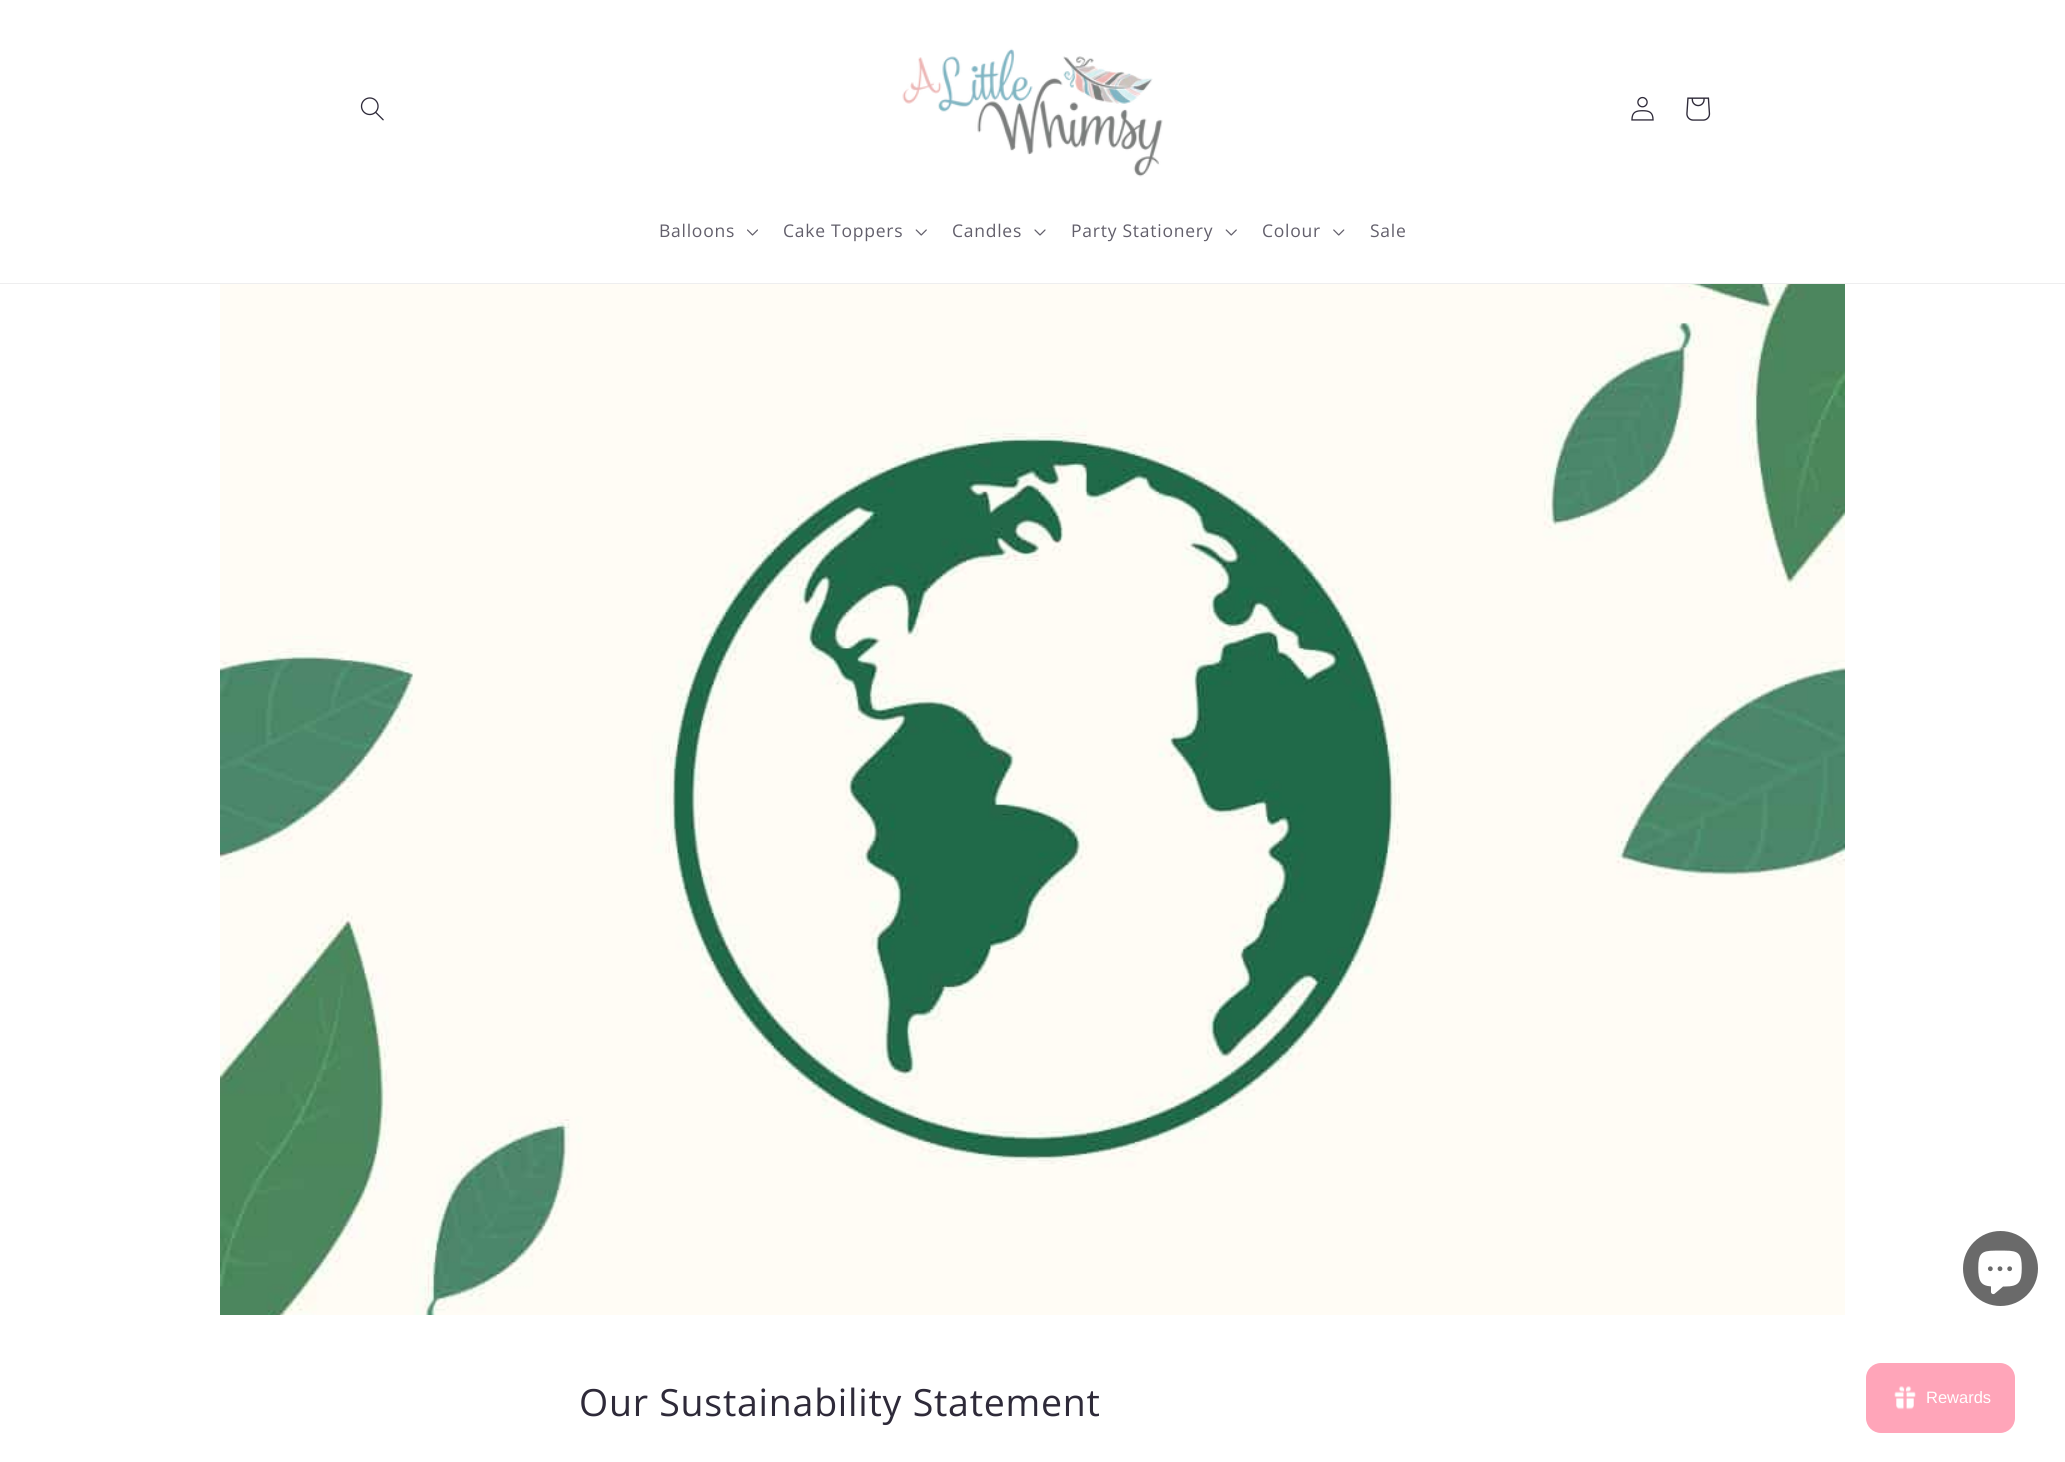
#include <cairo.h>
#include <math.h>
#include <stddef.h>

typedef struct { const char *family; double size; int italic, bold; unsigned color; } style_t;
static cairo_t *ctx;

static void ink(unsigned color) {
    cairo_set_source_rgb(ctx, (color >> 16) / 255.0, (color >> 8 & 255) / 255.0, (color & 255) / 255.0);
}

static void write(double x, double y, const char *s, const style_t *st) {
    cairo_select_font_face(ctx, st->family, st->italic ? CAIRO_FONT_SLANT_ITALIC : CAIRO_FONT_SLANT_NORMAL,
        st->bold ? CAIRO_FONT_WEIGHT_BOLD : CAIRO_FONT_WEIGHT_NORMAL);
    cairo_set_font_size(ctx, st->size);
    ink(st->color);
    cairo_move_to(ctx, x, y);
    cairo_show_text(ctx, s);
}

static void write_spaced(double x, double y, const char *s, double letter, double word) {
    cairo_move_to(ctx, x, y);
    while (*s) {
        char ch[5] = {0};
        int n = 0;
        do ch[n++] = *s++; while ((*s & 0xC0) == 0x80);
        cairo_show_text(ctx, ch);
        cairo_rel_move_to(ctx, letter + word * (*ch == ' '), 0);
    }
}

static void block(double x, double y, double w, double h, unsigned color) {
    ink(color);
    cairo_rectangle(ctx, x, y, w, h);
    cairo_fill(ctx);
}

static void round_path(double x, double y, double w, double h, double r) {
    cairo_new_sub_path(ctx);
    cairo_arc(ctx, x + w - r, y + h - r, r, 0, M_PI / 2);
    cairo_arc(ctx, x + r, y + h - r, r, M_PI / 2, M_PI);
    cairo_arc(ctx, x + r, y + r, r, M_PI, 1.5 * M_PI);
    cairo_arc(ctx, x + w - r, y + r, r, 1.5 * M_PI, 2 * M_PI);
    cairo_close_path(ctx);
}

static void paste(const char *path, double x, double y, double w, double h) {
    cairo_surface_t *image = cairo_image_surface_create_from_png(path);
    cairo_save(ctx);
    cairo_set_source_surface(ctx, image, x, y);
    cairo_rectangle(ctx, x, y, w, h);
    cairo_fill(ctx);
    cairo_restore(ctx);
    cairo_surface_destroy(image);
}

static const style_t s1 = {"Liberation Sans", 16.5, 0, 0, 0xffffff};

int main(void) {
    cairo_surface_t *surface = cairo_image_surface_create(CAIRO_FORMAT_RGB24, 2065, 1462);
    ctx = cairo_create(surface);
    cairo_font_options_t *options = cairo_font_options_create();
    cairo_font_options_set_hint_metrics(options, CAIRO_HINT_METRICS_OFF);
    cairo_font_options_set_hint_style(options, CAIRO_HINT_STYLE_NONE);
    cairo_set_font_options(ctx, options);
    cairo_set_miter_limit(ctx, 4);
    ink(0xffffff);
    cairo_paint(ctx);
    block(0, 283, 2065, 1, 0xeeeeef);
    paste("pic1.png", 360, 97, 24, 24);
    paste("pic2.png", 902, 48, 261, 129);
    paste("pic3.png", 1631, 96, 23, 25);
    paste("pic4.png", 1686, 97, 25, 24);
    cairo_select_font_face(ctx, "Open Sans", CAIRO_FONT_SLANT_NORMAL, CAIRO_FONT_WEIGHT_NORMAL);
    cairo_set_font_size(ctx, 17.5);
    ink(0x625f6b);
    write_spaced(659, 237, "Balloons", 0.75, 0);
    paste("pic5.png", 747, 229, 11, 7);
    write_spaced(783, 237, "Cake Toppers", 0.75, 0);
    paste("pic6.png", 915, 229, 12, 7);
    write_spaced(952, 237, "Candles", 0.75, 0);
    paste("pic7.png", 1034, 229, 12, 7);
    write_spaced(1071, 237, "Party Stationery", 0.75, 0);
    paste("pic6.png", 1225, 229, 12, 7);
    write_spaced(1262, 237, "Colour", 0.75, 0);
    paste("pic8.png", 1333, 229, 12, 7);
    write_spaced(1370, 237, "Sale", 0.75, 0);
    ink(0x6a6a6a);
    cairo_new_path(ctx);
    cairo_arc(ctx, 2000.5, 1268.5, 37.5, 0, 2 * M_PI);
    cairo_fill(ctx);
    paste("pic9.png", 1978, 1250, 44, 45);
    paste("pic10.png", 220, 284, 1625, 1031);
    cairo_set_font_size(ctx, 37.5);
    ink(0x2e2a39);
    write_spaced(579, 1416, "Our Sustainability Statement", 0.75, 0);
    ink(0xffa5b9);
    round_path(1866, 1363, 149, 70, 15);
    cairo_fill(ctx);
    paste("pic11.png", 1894, 1386, 22, 24);
    write(1926, 1403, "Rewards", &s1);
    cairo_surface_write_to_png(surface, "screenshot.png");
    cairo_font_options_destroy(options);
    cairo_destroy(ctx);
    cairo_surface_destroy(surface);
    return 0;
}
